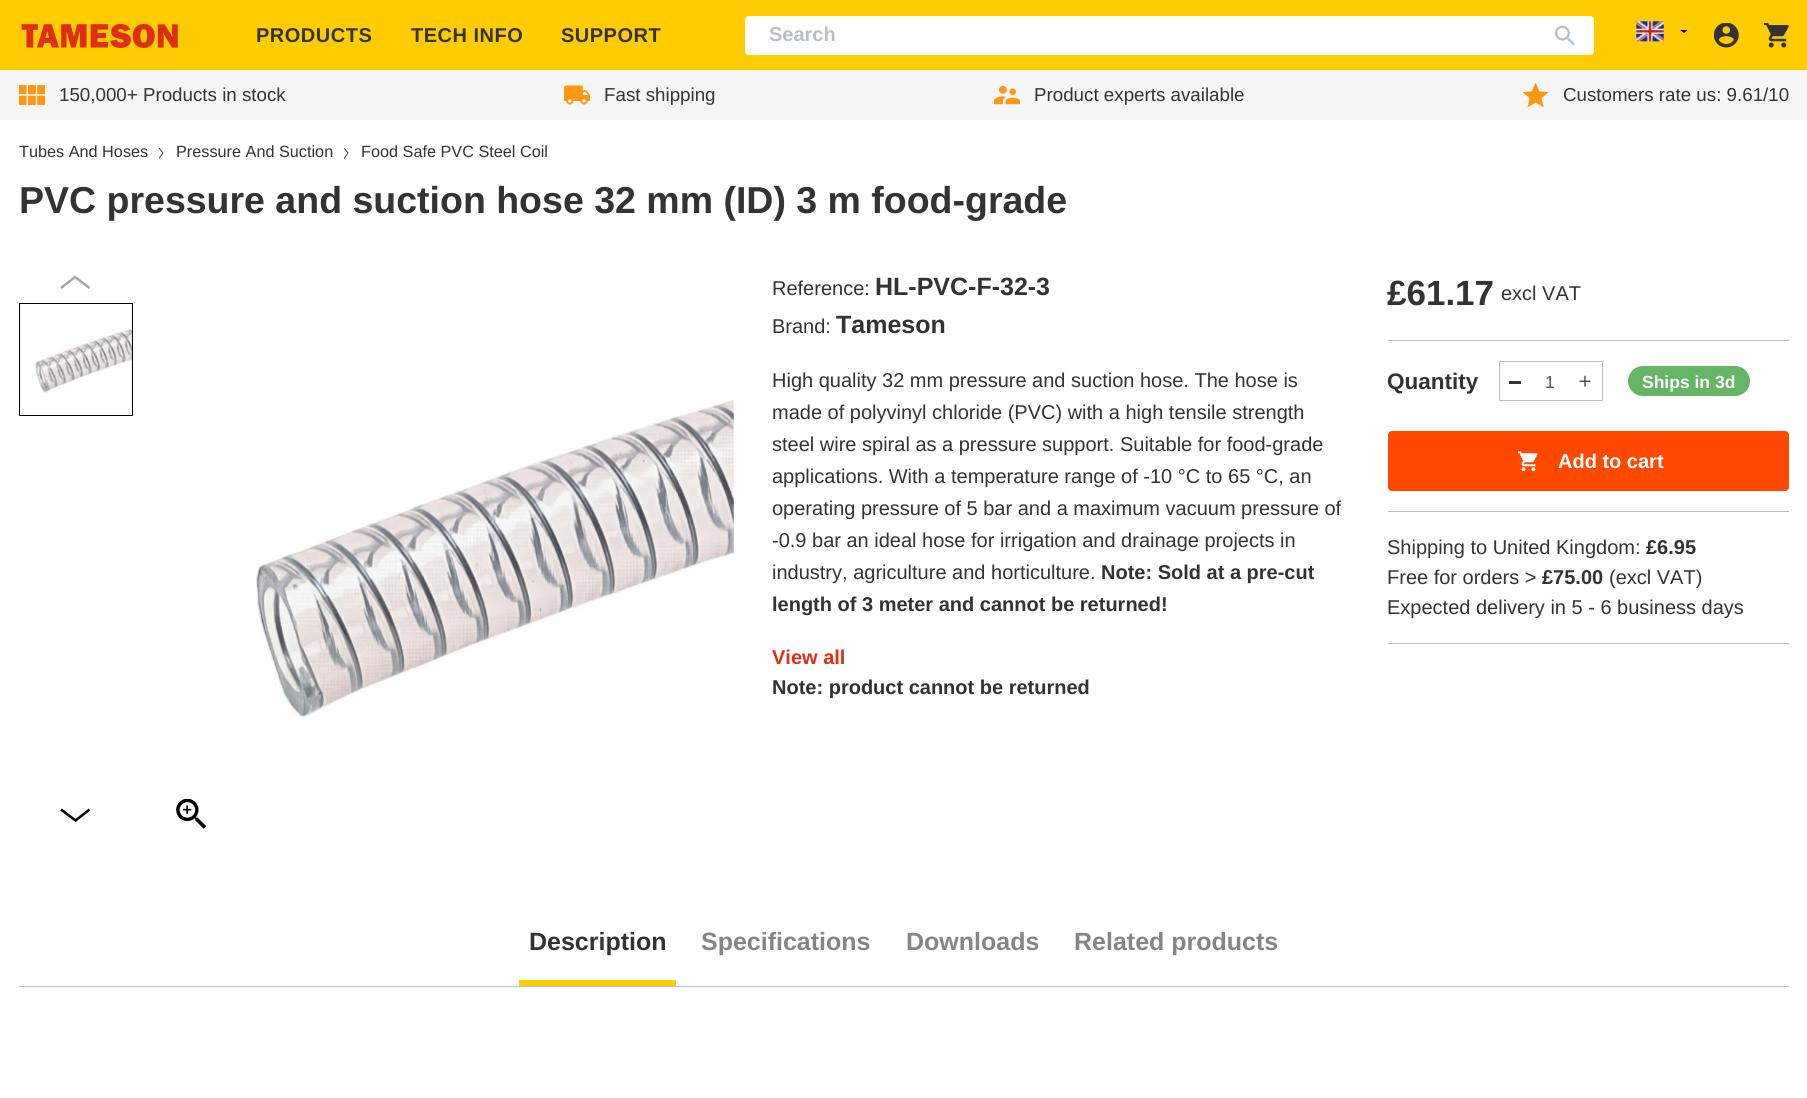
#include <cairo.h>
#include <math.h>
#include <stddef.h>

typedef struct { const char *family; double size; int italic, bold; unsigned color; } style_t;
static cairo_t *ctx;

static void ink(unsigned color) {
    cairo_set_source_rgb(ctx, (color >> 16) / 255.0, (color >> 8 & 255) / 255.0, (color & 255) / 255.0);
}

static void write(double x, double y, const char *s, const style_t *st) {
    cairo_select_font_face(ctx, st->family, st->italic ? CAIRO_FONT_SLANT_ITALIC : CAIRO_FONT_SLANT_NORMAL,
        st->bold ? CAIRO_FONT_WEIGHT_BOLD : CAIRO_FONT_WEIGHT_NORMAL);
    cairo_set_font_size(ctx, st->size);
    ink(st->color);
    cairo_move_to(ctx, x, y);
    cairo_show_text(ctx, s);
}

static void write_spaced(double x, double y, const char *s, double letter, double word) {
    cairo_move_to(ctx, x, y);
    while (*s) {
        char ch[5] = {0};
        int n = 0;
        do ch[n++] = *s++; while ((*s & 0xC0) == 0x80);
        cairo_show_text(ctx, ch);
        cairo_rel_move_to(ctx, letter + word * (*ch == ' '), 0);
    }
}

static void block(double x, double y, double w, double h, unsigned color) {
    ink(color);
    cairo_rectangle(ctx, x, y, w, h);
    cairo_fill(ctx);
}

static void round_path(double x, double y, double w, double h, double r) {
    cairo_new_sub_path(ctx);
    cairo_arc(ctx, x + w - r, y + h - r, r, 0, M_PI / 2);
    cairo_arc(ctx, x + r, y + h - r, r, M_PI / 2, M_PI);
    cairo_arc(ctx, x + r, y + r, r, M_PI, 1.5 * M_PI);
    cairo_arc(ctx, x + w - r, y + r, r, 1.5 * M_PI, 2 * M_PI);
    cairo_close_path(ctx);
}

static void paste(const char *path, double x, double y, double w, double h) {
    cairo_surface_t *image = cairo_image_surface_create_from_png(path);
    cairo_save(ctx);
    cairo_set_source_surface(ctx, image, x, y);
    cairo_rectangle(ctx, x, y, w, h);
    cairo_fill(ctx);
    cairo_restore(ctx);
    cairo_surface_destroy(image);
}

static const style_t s1 = {"Liberation Sans", 20, 0, 1, 0xb4bfc9};
static const style_t s2 = {"Liberation Sans", 18.75, 0, 0, 0x333333};
static const style_t s3 = {"Liberation Sans", 16.25, 0, 0, 0x333333};
static const style_t s4 = {"Liberation Sans", 37.5, 0, 1, 0x333333};
static const style_t s5 = {"Liberation Sans", 20, 0, 0, 0x333333};
static const style_t s6 = {"Liberation Sans", 25, 0, 1, 0x333333};
static const style_t s7 = {"Liberation Sans", 20, 0, 1, 0x333333};
static const style_t s8 = {"Liberation Sans", 20, 0, 1, 0xe02e16};
static const style_t s9 = {"Liberation Sans", 35, 0, 1, 0x333333};
static const style_t s10 = {"Liberation Sans", 22.5, 0, 1, 0x333333};
static const style_t s11 = {"Liberation Sans", 17.5, 0, 0, 0x525252};
static const style_t s12 = {"Liberation Sans", 17.5, 0, 1, 0xffffff};
static const style_t s13 = {"Liberation Sans", 20, 0, 1, 0xffffff};
static const style_t s14 = {"Liberation Sans", 25, 0, 1, 0x858585};

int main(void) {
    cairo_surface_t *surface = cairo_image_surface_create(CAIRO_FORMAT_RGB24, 1807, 1098);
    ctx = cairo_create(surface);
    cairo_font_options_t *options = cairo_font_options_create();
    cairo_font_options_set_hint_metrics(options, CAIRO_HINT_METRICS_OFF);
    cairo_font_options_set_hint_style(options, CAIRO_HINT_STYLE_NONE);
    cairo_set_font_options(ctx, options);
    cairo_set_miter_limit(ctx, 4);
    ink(0xffffff);
    cairo_paint(ctx);
    block(0, 0, 1807, 70, 0xffcc00);
    paste("pic1.png", 21, 23, 157, 25);
    cairo_select_font_face(ctx, "Liberation Sans", CAIRO_FONT_SLANT_NORMAL, CAIRO_FONT_WEIGHT_BOLD);
    cairo_set_font_size(ctx, 20);
    ink(0x333333);
    write_spaced(256, 42, "PRODUCTS", 0.5, 0);
    write_spaced(411, 42, "TECH INFO", 0.5, 0);
    write_spaced(561, 42, "SUPPORT", 0.5, 0);
    ink(0xffffff);
    round_path(745, 16, 849, 39, 4);
    cairo_fill(ctx);
    write(769, 41, "Search", &s1);
    paste("pic2.png", 1555, 25, 20, 20);
    paste("pic3.png", 1636, 21, 28, 21);
    ink(0x000000);
    cairo_new_path(ctx);
    cairo_move_to(ctx, 1684, 33);
    cairo_line_to(ctx, 1687.5, 30);
    cairo_line_to(ctx, 1680, 30);
    cairo_close_path(ctx);
    cairo_fill(ctx);
    paste("pic4.png", 1714, 23, 25, 25);
    paste("pic5.png", 1764, 23, 25, 25);
    block(0, 70, 1807, 50, 0xf6f6f6);
    paste("pic6.png", 19, 85, 26, 20);
    write(59, 101, "150,000+ Products in stock", &s2);
    paste("pic7.png", 564, 85, 26, 20);
    write(604, 101, "Fast shipping", &s2);
    paste("pic8.png", 994, 85, 26, 20);
    write(1034, 101, "Product experts available", &s2);
    paste("pic9.png", 1523, 83, 26, 25);
    write(1563, 101, "Customers rate us: 9.61/10", &s2);
    write(19, 157, "Tubes And Hoses", &s3);
    cairo_save(ctx);
    cairo_rectangle(ctx, 159, 148, 5, 11);
    cairo_clip(ctx);
    cairo_new_path(ctx);
    cairo_move_to(ctx, 159, 158.5);
    cairo_line_to(ctx, 163, 153);
    cairo_line_to(ctx, 159, 148);
    cairo_set_line_width(ctx, 0.9);
    cairo_stroke(ctx);
    cairo_restore(ctx);
    write(176, 157, "Pressure And Suction", &s3);
    cairo_save(ctx);
    cairo_rectangle(ctx, 344, 148, 5, 11);
    cairo_clip(ctx);
    cairo_new_path(ctx);
    cairo_move_to(ctx, 344, 158.5);
    cairo_line_to(ctx, 348, 153);
    cairo_line_to(ctx, 344, 148);
    cairo_set_line_width(ctx, 0.9);
    cairo_stroke(ctx);
    cairo_restore(ctx);
    write(361, 157, "Food Safe PVC Steel Coil", &s3);
    write(19, 213, "PVC pressure and suction hose 32 mm (ID) 3 m food-grade", &s4);
    cairo_new_path(ctx);
    cairo_move_to(ctx, 89.5, 288);
    cairo_line_to(ctx, 75, 277);
    cairo_line_to(ctx, 61, 288);
    ink(0xa6a6a6);
    cairo_set_line_width(ctx, 2.5);
    cairo_stroke(ctx);
    paste("pic10.png", 35, 328, 97, 65);
    cairo_rectangle(ctx, 19.5, 303.5, 113, 112);
    ink(0x000000);
    cairo_set_line_width(ctx, 1);
    cairo_stroke(ctx);
    cairo_new_path(ctx);
    cairo_move_to(ctx, 61, 809.5);
    cairo_line_to(ctx, 75.5, 820.5);
    cairo_line_to(ctx, 89.5, 809.5);
    cairo_set_line_width(ctx, 2.5);
    cairo_stroke(ctx);
    paste("pic11.png", 256, 400, 478, 319);
    paste("pic12.png", 176, 799, 30, 30);
    write(772, 295, "Reference:", &s5);
    write(875, 295, "HL-PVC-F-32-3", &s6);
    write(772, 333, "Brand:", &s5);
    write(836, 333, "Tameson", &s6);
    write(772, 387, "High quality 32 mm pressure and suction hose. The hose is", &s5);
    write(772, 419, "made of polyvinyl chloride (PVC) with a high tensile strength", &s5);
    write(772, 451, "steel wire spiral as a pressure support. Suitable for food-grade", &s5);
    write(772, 483, "applications. With a temperature range of -10 °C to 65 °C, an", &s5);
    write(772, 515, "operating pressure of 5 bar and a maximum vacuum pressure of", &s5);
    write(772, 547, "-0.9 bar an ideal hose for irrigation and drainage projects in", &s5);
    write(772, 579, "industry, agriculture and horticulture.", &s5);
    write(1101, 579, "Note: Sold at a pre-cut", &s7);
    write(772, 611, "length of 3 meter and cannot be returned!", &s7);
    write(772, 664, "View all", &s8);
    write(772, 694, "Note: product cannot be returned", &s7);
    write(1387, 305, "£61.17", &s9);
    write(1501, 300, "excl VAT", &s5);
    block(1388, 340, 401, 1, 0xb4bfc9);
    write(1387, 389, "Quantity", &s10);
    round_path(1499.5, 361.5, 103, 39, 0.5);
    ink(0xb4bfc9);
    cairo_set_line_width(ctx, 1);
    cairo_stroke(ctx);
    block(1509, 381, 12, 3, 0x333333);
    write(1545, 388, "1", &s11);
    paste("pic13.png", 1579, 375, 12, 12);
    ink(0x64b564);
    round_path(1628, 366, 122, 30, 15);
    cairo_fill(ctx);
    write(1642, 388, "Ships in 3d", &s12);
    ink(0xff4800);
    round_path(1388.5, 431.5, 400, 59, 3.5);
    cairo_fill_preserve(ctx);
    cairo_stroke(ctx);
    paste("pic14.png", 1518, 451, 20, 20);
    write(1558, 468, "Add to cart", &s13);
    block(1388, 511, 401, 1, 0xb4bfc9);
    write(1387, 554, "Shipping to United Kingdom:", &s5);
    write(1646, 554, "£6.95", &s7);
    write(1387, 584, "Free for orders >", &s5);
    write(1542, 584, "£75.00", &s7);
    write(1609, 584, "(excl VAT)", &s5);
    write(1387, 614, "Expected delivery in 5 - 6 business days", &s5);
    block(1388, 643, 401, 1, 0xb4bfc9);
    block(19, 986, 1770, 1, 0xb4bfc9);
    block(519, 980, 157, 6, 0xffcc00);
    write(529, 950, "Description", &s6);
    write(701, 950, "Specifications", &s14);
    write(906, 950, "Downloads", &s14);
    write(1074, 950, "Related products", &s14);
    cairo_surface_write_to_png(surface, "screenshot.png");
    cairo_font_options_destroy(options);
    cairo_destroy(ctx);
    cairo_surface_destroy(surface);
    return 0;
}
